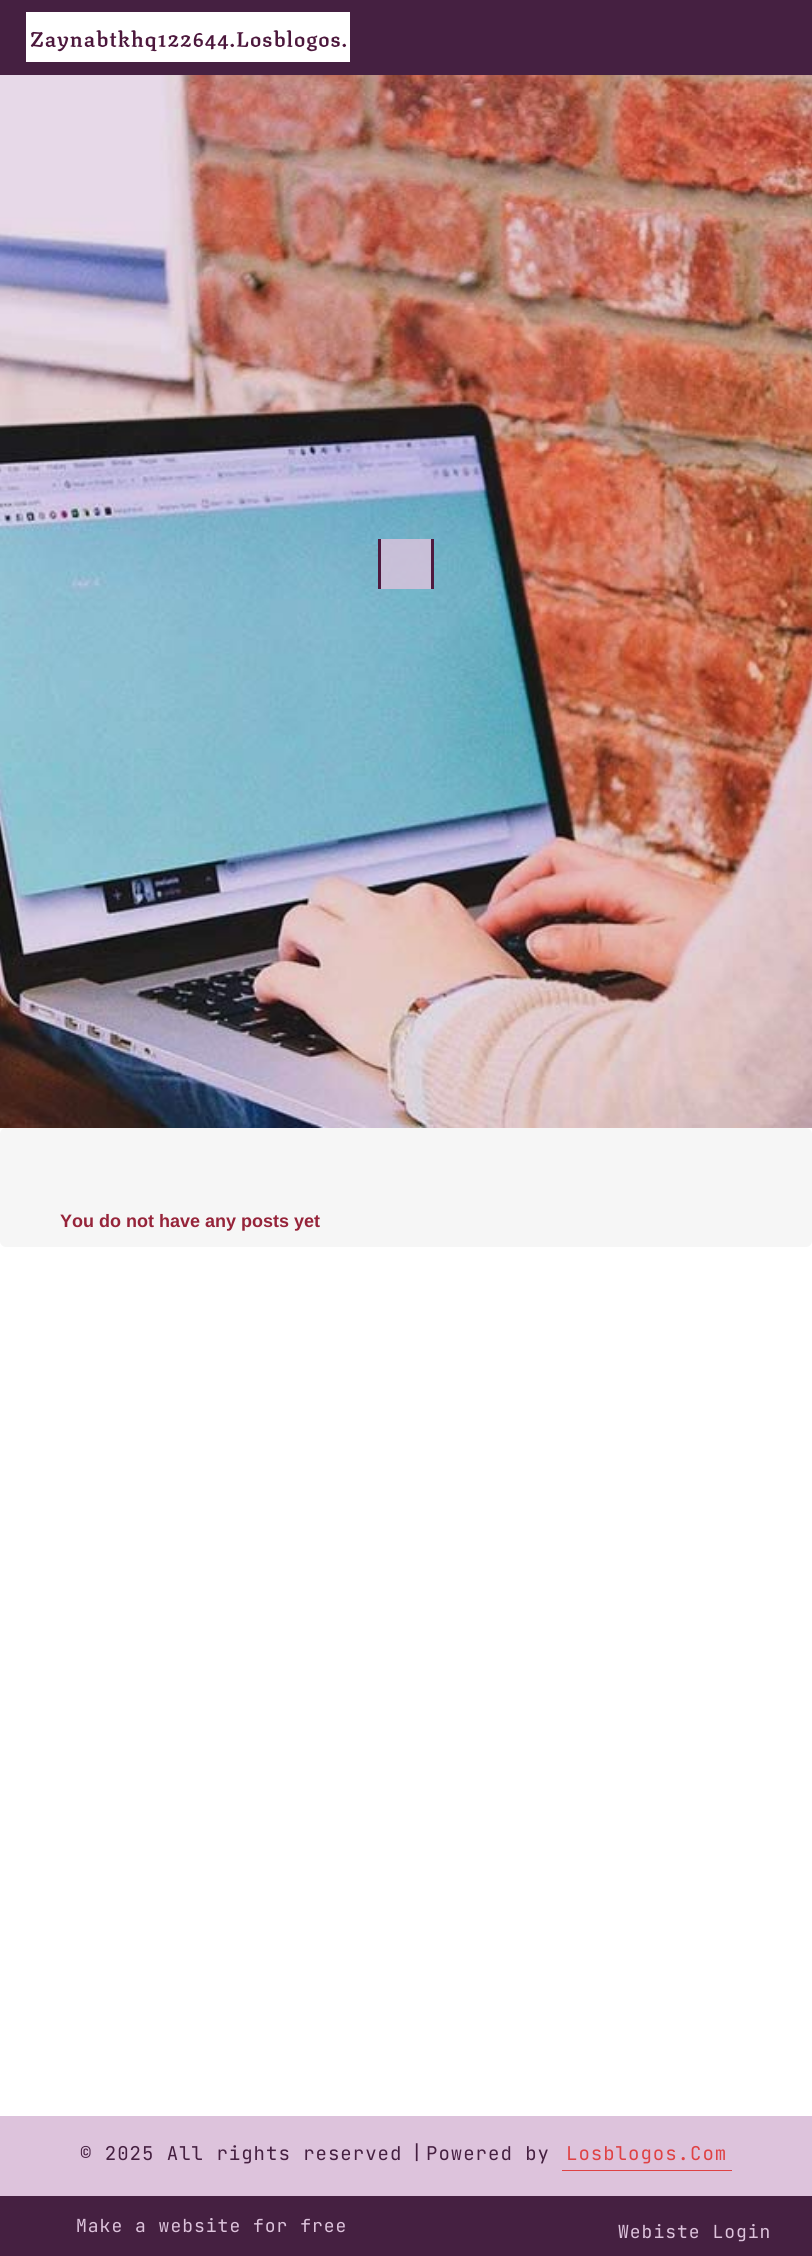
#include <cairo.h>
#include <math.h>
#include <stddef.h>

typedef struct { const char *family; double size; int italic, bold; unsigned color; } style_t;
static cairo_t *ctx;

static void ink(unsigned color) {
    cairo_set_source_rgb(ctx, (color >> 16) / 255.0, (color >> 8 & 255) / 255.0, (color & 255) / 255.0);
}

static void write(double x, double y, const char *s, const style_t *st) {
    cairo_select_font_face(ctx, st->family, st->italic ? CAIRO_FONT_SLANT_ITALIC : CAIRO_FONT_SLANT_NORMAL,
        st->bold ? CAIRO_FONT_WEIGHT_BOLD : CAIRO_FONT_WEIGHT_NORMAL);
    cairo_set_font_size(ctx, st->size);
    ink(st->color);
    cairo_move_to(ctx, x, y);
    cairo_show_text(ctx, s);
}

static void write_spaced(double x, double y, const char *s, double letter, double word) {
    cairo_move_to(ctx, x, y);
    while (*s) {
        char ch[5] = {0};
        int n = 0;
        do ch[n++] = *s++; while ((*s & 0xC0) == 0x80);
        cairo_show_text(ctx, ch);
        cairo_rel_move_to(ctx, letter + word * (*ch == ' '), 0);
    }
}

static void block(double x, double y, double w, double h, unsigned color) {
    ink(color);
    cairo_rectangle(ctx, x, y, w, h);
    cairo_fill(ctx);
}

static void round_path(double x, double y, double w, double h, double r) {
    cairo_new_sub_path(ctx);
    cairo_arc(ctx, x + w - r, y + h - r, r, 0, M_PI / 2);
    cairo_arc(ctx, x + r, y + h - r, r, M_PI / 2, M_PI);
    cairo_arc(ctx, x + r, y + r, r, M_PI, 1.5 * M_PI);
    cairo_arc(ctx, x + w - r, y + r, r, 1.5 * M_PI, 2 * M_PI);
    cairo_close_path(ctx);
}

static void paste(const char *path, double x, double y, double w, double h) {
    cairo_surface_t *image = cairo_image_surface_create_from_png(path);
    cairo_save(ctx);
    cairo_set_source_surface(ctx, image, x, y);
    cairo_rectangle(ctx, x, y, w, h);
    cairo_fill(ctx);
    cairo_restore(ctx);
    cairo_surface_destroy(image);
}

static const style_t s1 = {"Liberation Sans", 18, 0, 1, 0x96243a};

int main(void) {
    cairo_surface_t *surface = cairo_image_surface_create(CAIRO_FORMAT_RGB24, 812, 2256);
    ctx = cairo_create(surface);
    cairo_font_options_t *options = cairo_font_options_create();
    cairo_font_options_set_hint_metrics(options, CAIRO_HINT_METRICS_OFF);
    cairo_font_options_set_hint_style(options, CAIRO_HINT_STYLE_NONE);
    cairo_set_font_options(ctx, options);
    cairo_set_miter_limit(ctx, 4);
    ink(0xffffff);
    cairo_paint(ctx);
    block(0, 0, 812, 75, 0x452041);
    block(26, 12, 324, 50, 0xffffff);
    cairo_select_font_face(ctx, "Texturina SemiBold", CAIRO_FONT_SLANT_NORMAL, CAIRO_FONT_WEIGHT_NORMAL);
    cairo_set_font_size(ctx, 21);
    ink(0x4c173c);
    write_spaced(30, 47, "Zaynabtkhq122644.Losblogos.", 1, 0);
    paste("pic1.png", 0, 75, 812, 1053);
    cairo_set_source_rgba(ctx, 0.867, 0.765, 0.863, 0.8);
    cairo_rectangle(ctx, 381, 539, 50, 50);
    cairo_fill(ctx);
    block(431, 539, 3, 50, 0x4f193e);
    block(378, 539, 3, 50, 0x4f193e);
    ink(0xf6f6f6);
    round_path(0, 1128, 812, 119, 6);
    cairo_fill(ctx);
    write(60, 1227, "You do not have any posts yet", &s1);
    block(0, 2116, 812, 80, 0xddc3dc);
    cairo_select_font_face(ctx, "JetBrains Mono", CAIRO_FONT_SLANT_NORMAL, CAIRO_FONT_WEIGHT_NORMAL);
    cairo_set_font_size(ctx, 19);
    ink(0x452041);
    write_spaced(80, 2160, "© 2025 All rights reserved", 1, 0);
    write_spaced(411, 2159, "|", 1, 0);
    write_spaced(426, 2160, "Powered by", 1, 0);
    ink(0xdf4244);
    write_spaced(566, 2160, "Losblogos.Com", 1, 0);
    block(562, 2170, 170, 1, 0xdf4244);
    block(0, 2196, 812, 60, 0x452041);
    cairo_set_font_size(ctx, 18);
    ink(0xddc3dc);
    write_spaced(76, 2232, "Make a website for free", 1, 0);
    write_spaced(618, 2238, "Webiste Login", 1, 0);
    cairo_surface_write_to_png(surface, "screenshot.png");
    cairo_font_options_destroy(options);
    cairo_destroy(ctx);
    cairo_surface_destroy(surface);
    return 0;
}
